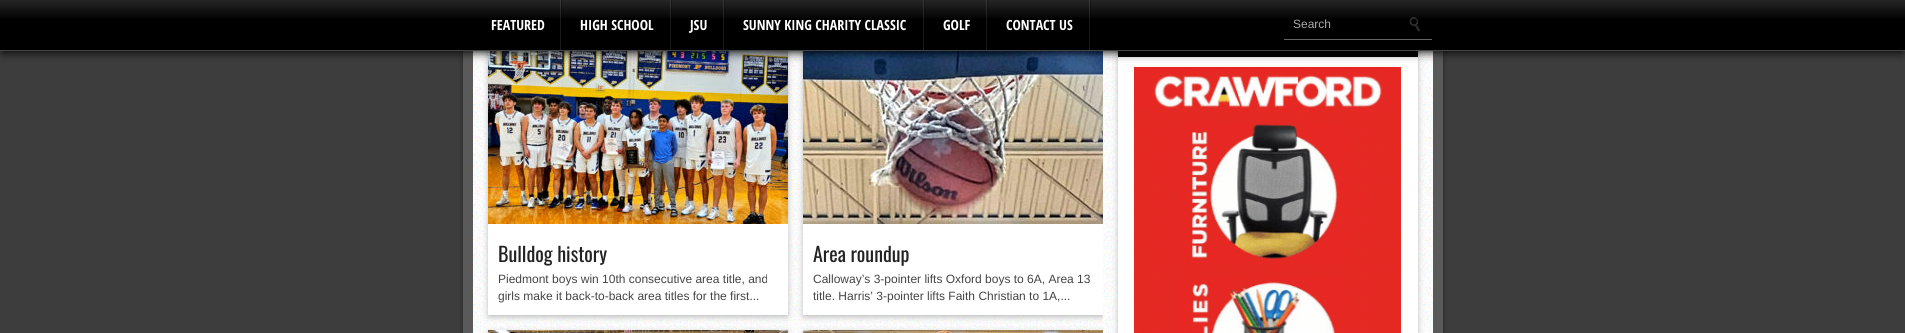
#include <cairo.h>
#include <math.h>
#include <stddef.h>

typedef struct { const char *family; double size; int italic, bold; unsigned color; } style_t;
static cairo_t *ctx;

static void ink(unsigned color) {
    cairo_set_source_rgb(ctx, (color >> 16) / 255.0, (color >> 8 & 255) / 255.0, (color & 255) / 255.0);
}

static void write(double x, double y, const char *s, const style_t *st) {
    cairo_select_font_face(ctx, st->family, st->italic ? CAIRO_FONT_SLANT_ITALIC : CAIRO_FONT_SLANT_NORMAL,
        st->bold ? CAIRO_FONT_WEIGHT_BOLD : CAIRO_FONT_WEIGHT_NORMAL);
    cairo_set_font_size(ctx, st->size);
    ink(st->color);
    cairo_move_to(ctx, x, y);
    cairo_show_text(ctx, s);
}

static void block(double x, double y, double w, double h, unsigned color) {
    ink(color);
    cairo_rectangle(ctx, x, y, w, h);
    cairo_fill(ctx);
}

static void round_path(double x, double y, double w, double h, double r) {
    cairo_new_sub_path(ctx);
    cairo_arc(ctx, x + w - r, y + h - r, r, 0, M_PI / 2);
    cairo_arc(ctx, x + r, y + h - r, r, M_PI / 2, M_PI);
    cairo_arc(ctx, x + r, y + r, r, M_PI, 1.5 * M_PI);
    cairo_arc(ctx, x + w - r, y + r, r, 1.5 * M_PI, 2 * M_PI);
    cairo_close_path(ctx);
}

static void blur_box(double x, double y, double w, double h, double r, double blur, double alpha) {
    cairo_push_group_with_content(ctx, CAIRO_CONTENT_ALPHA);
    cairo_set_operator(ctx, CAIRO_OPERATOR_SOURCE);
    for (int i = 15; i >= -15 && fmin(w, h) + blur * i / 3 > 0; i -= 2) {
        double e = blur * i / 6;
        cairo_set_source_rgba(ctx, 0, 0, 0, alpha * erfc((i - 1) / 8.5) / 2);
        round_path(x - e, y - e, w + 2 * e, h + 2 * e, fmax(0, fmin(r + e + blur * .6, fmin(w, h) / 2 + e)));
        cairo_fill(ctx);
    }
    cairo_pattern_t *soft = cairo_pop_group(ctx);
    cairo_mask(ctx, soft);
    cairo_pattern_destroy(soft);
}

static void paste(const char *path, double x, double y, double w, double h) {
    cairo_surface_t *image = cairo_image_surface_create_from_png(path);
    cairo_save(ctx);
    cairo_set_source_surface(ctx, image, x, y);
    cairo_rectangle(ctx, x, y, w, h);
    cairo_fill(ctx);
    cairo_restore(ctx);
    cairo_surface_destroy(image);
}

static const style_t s1 = {"Open Sans Condensed", 14, 0, 1, 0xffffff};
static const style_t s2 = {"Liberation Sans", 12, 0, 0, 0xaaaaaa};
static const style_t s3 = {"Oswald", 20, 0, 0, 0x222222};
static const style_t s4 = {"Liberation Sans", 12, 0, 0, 0x444444};

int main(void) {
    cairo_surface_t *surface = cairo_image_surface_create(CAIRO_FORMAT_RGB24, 1905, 333);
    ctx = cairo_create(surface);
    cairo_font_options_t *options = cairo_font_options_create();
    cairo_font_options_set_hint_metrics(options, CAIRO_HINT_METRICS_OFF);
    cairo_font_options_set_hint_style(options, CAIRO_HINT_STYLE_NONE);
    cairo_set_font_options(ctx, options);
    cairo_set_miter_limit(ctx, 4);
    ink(0x3d3d3d);
    cairo_paint(ctx);
    ink(0x000000);
    blur_box(466, -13, 974, 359, 2, 3.5, 1);
    block(463, 51, 980, 282, 0x5a5a5a);
    paste("pic4.png", 473, 51, 960, 282);
    ink(0xaaaaaa);
    blur_box(489, 32, 298, 284, 0, 3.5, 1);
    paste("pic5.png", 488, 51, 300, 173);
    cairo_save(ctx);
    cairo_rectangle(ctx, 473, 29, 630, 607);
    cairo_clip(ctx);
    blur_box(804, 32, 298, 284, 0, 3.5, 1);
    cairo_restore(ctx);
    paste("pic6.png", 803, 51, 300, 173);
    blur_box(1119, 32, 298, 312, 0, 3.5, 1);
    block(1118, 57, 300, 276, 0xffffff);
    block(1118, 51, 300, 6, 0x000000);
    paste("pic9.png", 1134, 67, 267, 266);
    ink(0x000000);
    blur_box(3, 7, 1899, 45, 0, 5, 1);
    block(0, 0, 1905, 50, 0x000000);
    paste("pic1.png", 0, 0, 1905, 18);
    block(0, 50, 1905, 1, 0x444444);
    paste("pic2.png", 560, 0, 2, 50);
    write(491, 30, "FEATURED", &s1);
    paste("pic2.png", 670, 0, 2, 50);
    write(580, 30, "HIGH SCHOOL", &s1);
    paste("pic2.png", 723, 0, 2, 50);
    write(690, 30, "JSU", &s1);
    paste("pic2.png", 923, 0, 2, 50);
    write(743, 30, "SUNNY KING CHARITY CLASSIC", &s1);
    paste("pic2.png", 986, 0, 2, 50);
    write(943, 30, "GOLF", &s1);
    paste("pic2.png", 1089, 0, 2, 50);
    write(1006, 30, "CONTACT US", &s1);
    paste("pic3.png", 1409, 17, 11, 15);
    block(1284, 39, 148, 1, 0x666666);
    write(1293, 28, "Search", &s2);
    block(488, 224, 300, 91, 0xffffff);
    write(498, 262, "Bulldog history", &s3);
    write(498, 283, "Piedmont boys win 10th consecutive area title, and", &s4);
    write(498, 300, "girls make it back-to-back area titles for the first...", &s4);
    block(803, 224, 300, 91, 0xffffff);
    write(813, 262, "Area roundup", &s3);
    write(813, 283, "Calloway’s 3-pointer lifts Oxford boys to 6A, Area 13", &s4);
    write(813, 300, "title. Harris’ 3-pointer lifts Faith Christian to 1A,...", &s4);
    ink(0xaaaaaa);
    blur_box(489, 333, 298, 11, 0, 3.5, 1);
    paste("pic7.png", 488, 330, 300, 3);
    cairo_save(ctx);
    cairo_rectangle(ctx, 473, 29, 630, 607);
    cairo_clip(ctx);
    blur_box(804, 333, 298, 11, 0, 3.5, 1);
    cairo_restore(ctx);
    paste("pic8.png", 803, 330, 300, 3);
    cairo_surface_write_to_png(surface, "screenshot.png");
    cairo_font_options_destroy(options);
    cairo_destroy(ctx);
    cairo_surface_destroy(surface);
    return 0;
}
